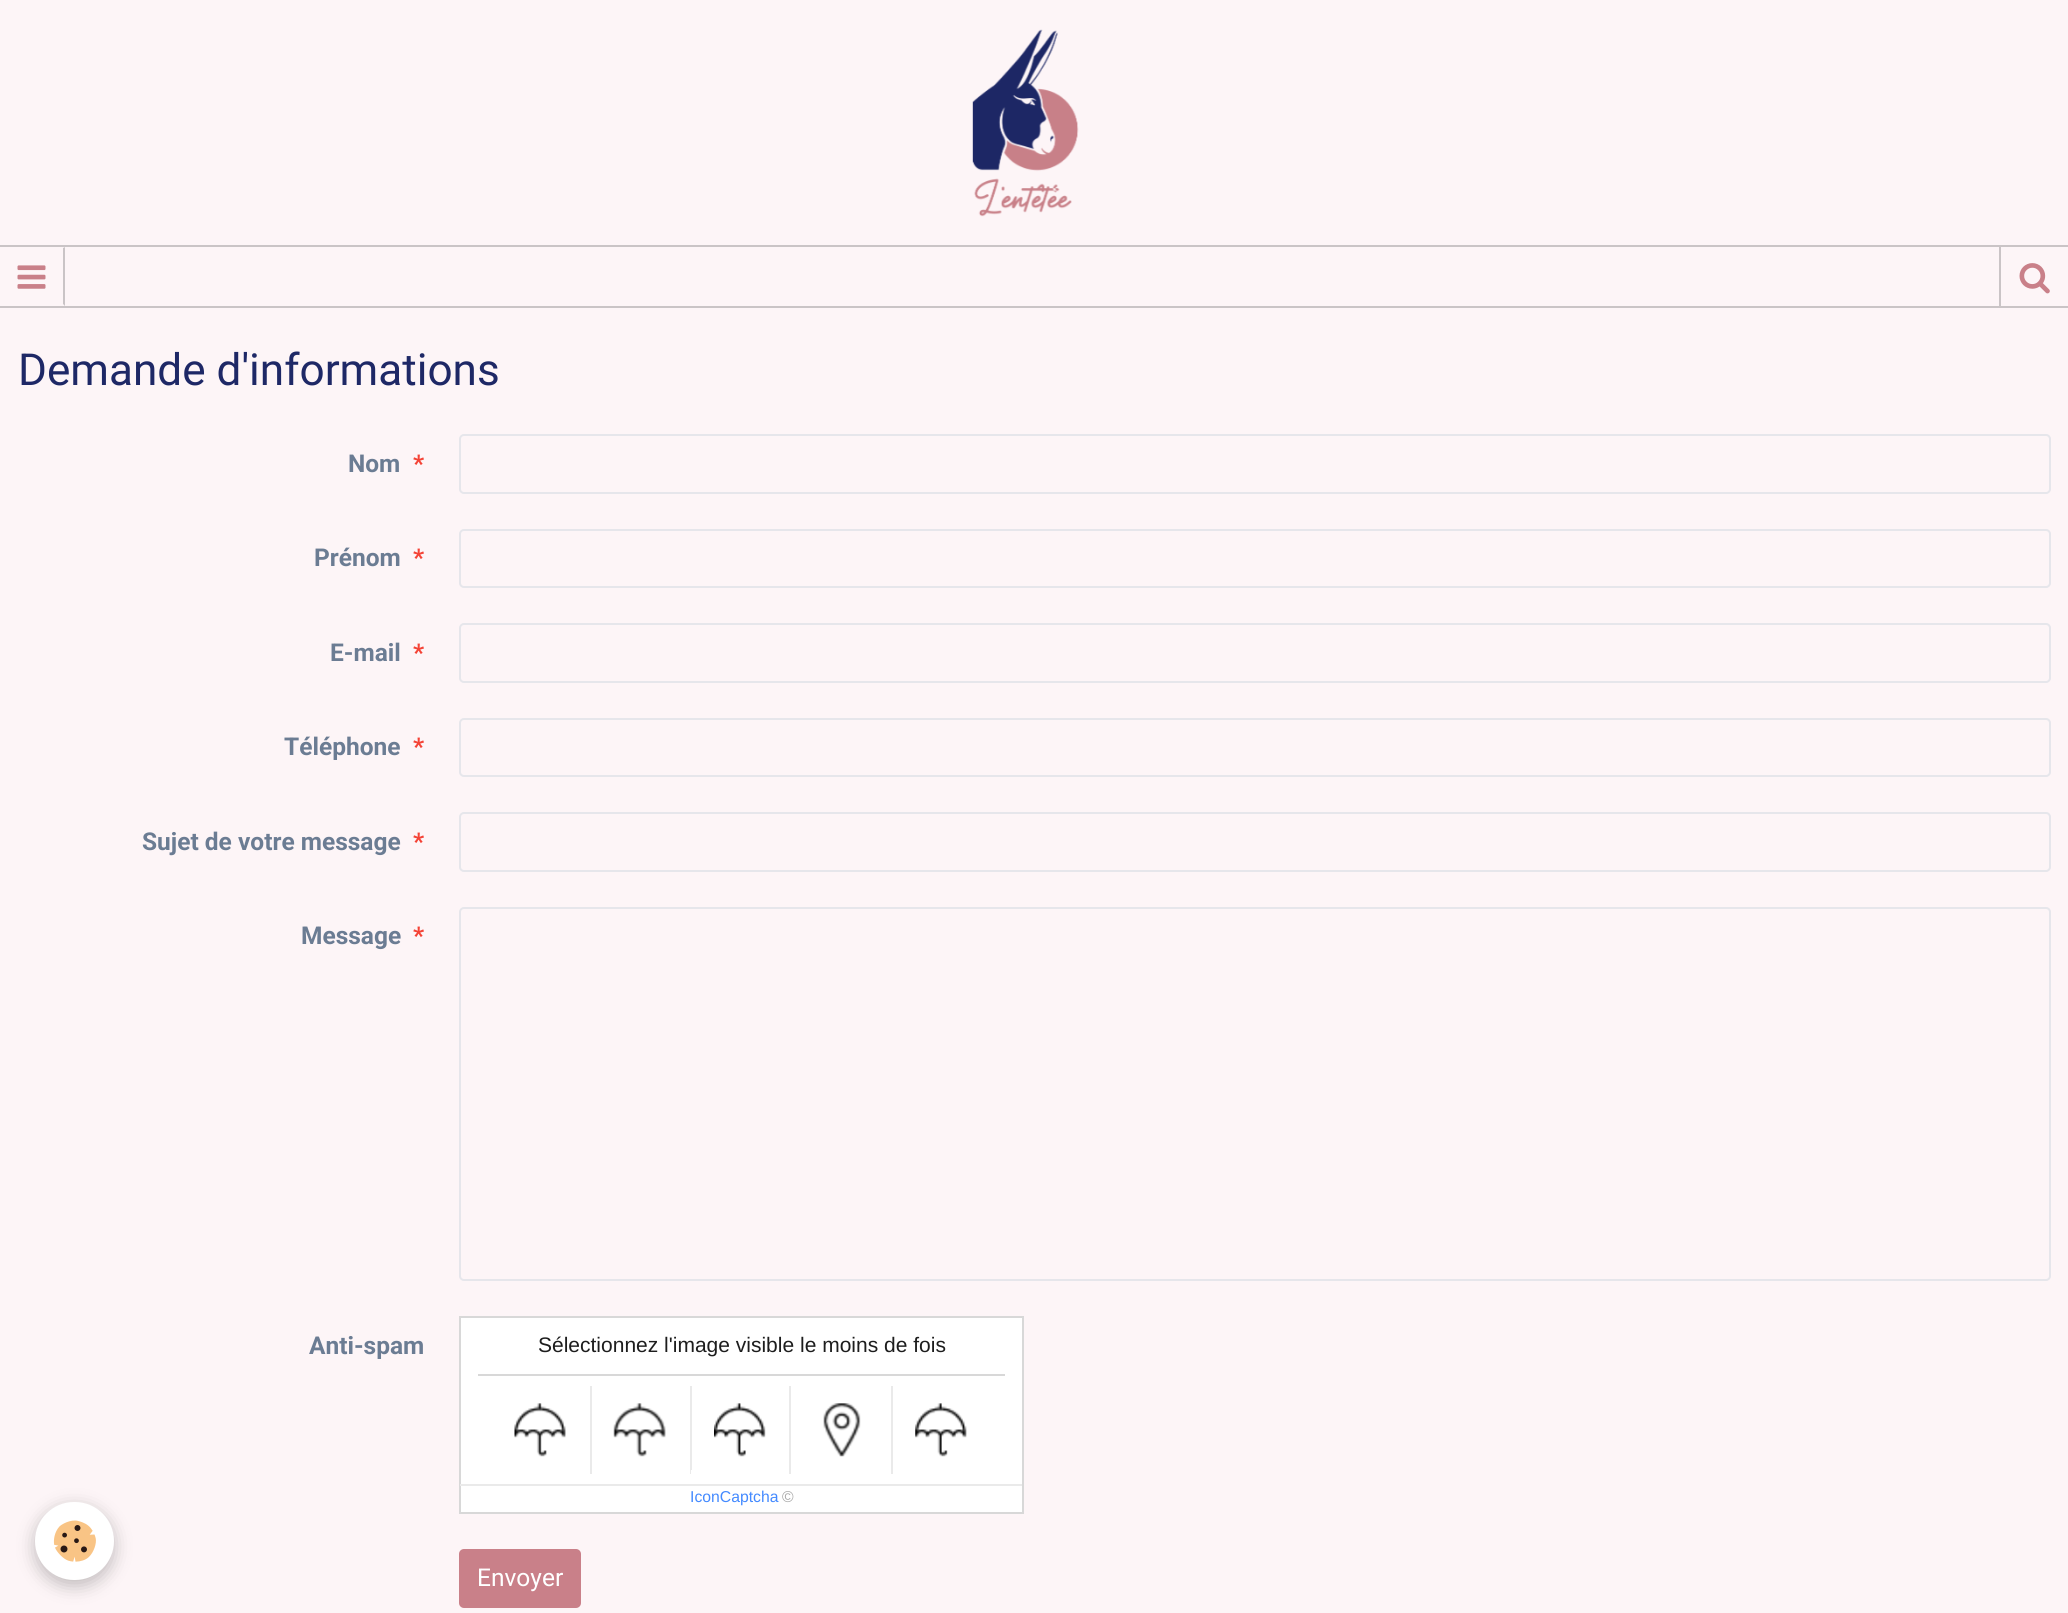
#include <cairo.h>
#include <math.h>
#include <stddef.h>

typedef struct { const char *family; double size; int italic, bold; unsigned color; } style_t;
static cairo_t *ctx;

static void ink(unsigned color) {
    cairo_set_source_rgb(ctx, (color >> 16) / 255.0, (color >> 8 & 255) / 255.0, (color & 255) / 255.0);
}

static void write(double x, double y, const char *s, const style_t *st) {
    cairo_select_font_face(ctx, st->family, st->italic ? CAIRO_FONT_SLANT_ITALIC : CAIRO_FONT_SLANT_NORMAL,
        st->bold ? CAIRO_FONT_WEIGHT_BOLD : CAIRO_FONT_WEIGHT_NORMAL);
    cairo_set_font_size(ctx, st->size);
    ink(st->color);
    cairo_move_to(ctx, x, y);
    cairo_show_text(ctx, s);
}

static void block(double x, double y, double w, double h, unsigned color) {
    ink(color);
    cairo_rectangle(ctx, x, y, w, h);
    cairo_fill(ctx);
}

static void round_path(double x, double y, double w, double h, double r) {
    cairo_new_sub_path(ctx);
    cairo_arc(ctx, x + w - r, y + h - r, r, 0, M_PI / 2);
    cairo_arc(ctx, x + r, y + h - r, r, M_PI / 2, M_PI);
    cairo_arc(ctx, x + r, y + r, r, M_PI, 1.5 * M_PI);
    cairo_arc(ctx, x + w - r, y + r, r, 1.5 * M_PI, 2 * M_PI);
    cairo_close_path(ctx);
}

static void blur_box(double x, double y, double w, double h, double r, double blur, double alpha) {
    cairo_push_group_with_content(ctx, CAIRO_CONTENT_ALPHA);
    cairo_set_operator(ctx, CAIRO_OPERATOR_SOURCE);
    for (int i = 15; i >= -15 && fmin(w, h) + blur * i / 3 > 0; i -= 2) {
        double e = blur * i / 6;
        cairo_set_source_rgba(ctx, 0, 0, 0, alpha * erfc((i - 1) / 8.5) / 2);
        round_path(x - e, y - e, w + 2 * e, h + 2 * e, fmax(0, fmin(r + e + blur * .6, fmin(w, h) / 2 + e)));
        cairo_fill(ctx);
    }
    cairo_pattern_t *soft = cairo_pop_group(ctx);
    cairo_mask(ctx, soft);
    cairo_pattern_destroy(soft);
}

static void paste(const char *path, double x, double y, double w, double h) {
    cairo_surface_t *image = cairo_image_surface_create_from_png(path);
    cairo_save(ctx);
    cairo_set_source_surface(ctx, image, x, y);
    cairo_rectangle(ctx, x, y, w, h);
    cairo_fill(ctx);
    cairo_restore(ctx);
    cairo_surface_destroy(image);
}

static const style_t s1 = {"Roboto", 44.1, 0, 0, 0x1e2866};
static const style_t s2 = {"Roboto", 24.5, 0, 1, 0x6b7c93};
static const style_t s3 = {"Roboto", 24.5, 0, 1, 0xf44336};
static const style_t s4 = {"Liberation Sans", 21, 0, 0, 0x1d1d1d};
static const style_t s5 = {"Liberation Sans", 15.75, 0, 0, 0x448aff};
static const style_t s6 = {"Liberation Sans", 15.75, 0, 0, 0xa7a7a7};
static const style_t s7 = {"Roboto", 24.5, 0, 0, 0xffffff};

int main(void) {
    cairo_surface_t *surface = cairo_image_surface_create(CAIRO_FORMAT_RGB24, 2068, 1613);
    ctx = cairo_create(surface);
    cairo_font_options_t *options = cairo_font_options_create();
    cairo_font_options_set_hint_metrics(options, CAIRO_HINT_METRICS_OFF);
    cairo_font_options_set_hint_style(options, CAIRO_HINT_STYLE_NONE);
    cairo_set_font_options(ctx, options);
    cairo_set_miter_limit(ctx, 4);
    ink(0xfdf5f7);
    cairo_paint(ctx);
    paste("pic1.png", 972, 29, 107, 188);
    block(0, 245, 2068, 2, 0xcac4c6);
    block(0, 306, 2068, 2, 0xcac4c6);
    cairo_new_path(ctx);
    cairo_move_to(ctx, 65, 247);
    cairo_line_to(ctx, 65, 306);
    cairo_line_to(ctx, 63, 304);
    cairo_line_to(ctx, 63, 248);
    cairo_close_path(ctx);
    cairo_fill(ctx);
    paste("pic2.png", 17, 265, 29, 24);
    block(1999, 247, 2, 59, 0xcac4c6);
    paste("pic3.png", 2019, 263, 31, 31);
    write(18, 385, "Demande d'informations", &s1);
    write(348, 472, "Nom", &s2);
    write(413, 472, "*", &s3);
    round_path(460, 435, 1590, 58, 4);
    ink(0xe6e6eb);
    cairo_stroke(ctx);
    write(314, 566, "Prénom", &s2);
    write(413, 566, "*", &s3);
    round_path(460, 530, 1590, 57, 4);
    ink(0xe6e6eb);
    cairo_stroke(ctx);
    write(330, 661, "E-mail", &s2);
    write(413, 661, "*", &s3);
    round_path(460, 624, 1590, 58, 4);
    ink(0xe6e6eb);
    cairo_stroke(ctx);
    write(284, 755, "Téléphone", &s2);
    write(413, 755, "*", &s3);
    round_path(460, 719, 1590, 57, 4);
    ink(0xe6e6eb);
    cairo_stroke(ctx);
    write(142, 850, "Sujet de votre message", &s2);
    write(413, 850, "*", &s3);
    round_path(460, 813, 1590, 58, 4);
    ink(0xe6e6eb);
    cairo_stroke(ctx);
    write(301, 944, "Message", &s2);
    write(413, 944, "*", &s3);
    round_path(460, 908, 1590, 372, 4);
    ink(0xe6e6eb);
    cairo_stroke(ctx);
    write(309, 1354, "Anti-spam", &s2);
    ink(0xffffff);
    cairo_rectangle(ctx, 460, 1317, 563, 196);
    cairo_fill_preserve(ctx);
    ink(0xd8d8d8);
    cairo_stroke(ctx);
    block(478, 1374, 527, 2, 0xd8d8d8);
    write(538, 1352, "Sélectionnez l'image visible le moins de fois", &s4);
    paste("pic4.png", 514, 1403, 52, 54);
    block(590, 1386, 2, 88, 0xeaeaea);
    paste("pic5.png", 613, 1403, 53, 54);
    block(690, 1386, 2, 88, 0xeaeaea);
    paste("pic6.png", 714, 1403, 52, 54);
    block(789, 1386, 2, 88, 0xeaeaea);
    block(691, 1470, 1, 4, 0xffffff);
    paste("pic7.png", 823, 1403, 38, 54);
    block(891, 1386, 2, 88, 0xeaeaea);
    paste("pic8.png", 915, 1403, 52, 54);
    block(460, 1484, 562, 2, 0xeaeaea);
    write(690, 1502, "IconCaptcha", &s5);
    write(782, 1502, "©", &s6);
    ink(0xc98089);
    round_path(459, 1549, 122, 59, 5);
    cairo_fill(ctx);
    write(477, 1586, "Envoyer", &s7);
    ink(0x000000);
    blur_box(35, 1507, 79, 79, 39.5, 9, 0.24);
    ink(0xffffff);
    round_path(35, 1502, 79, 78, 39);
    cairo_fill(ctx);
    paste("pic9.png", 53, 1520, 43, 42);
    cairo_surface_write_to_png(surface, "screenshot.png");
    cairo_font_options_destroy(options);
    cairo_destroy(ctx);
    cairo_surface_destroy(surface);
    return 0;
}
